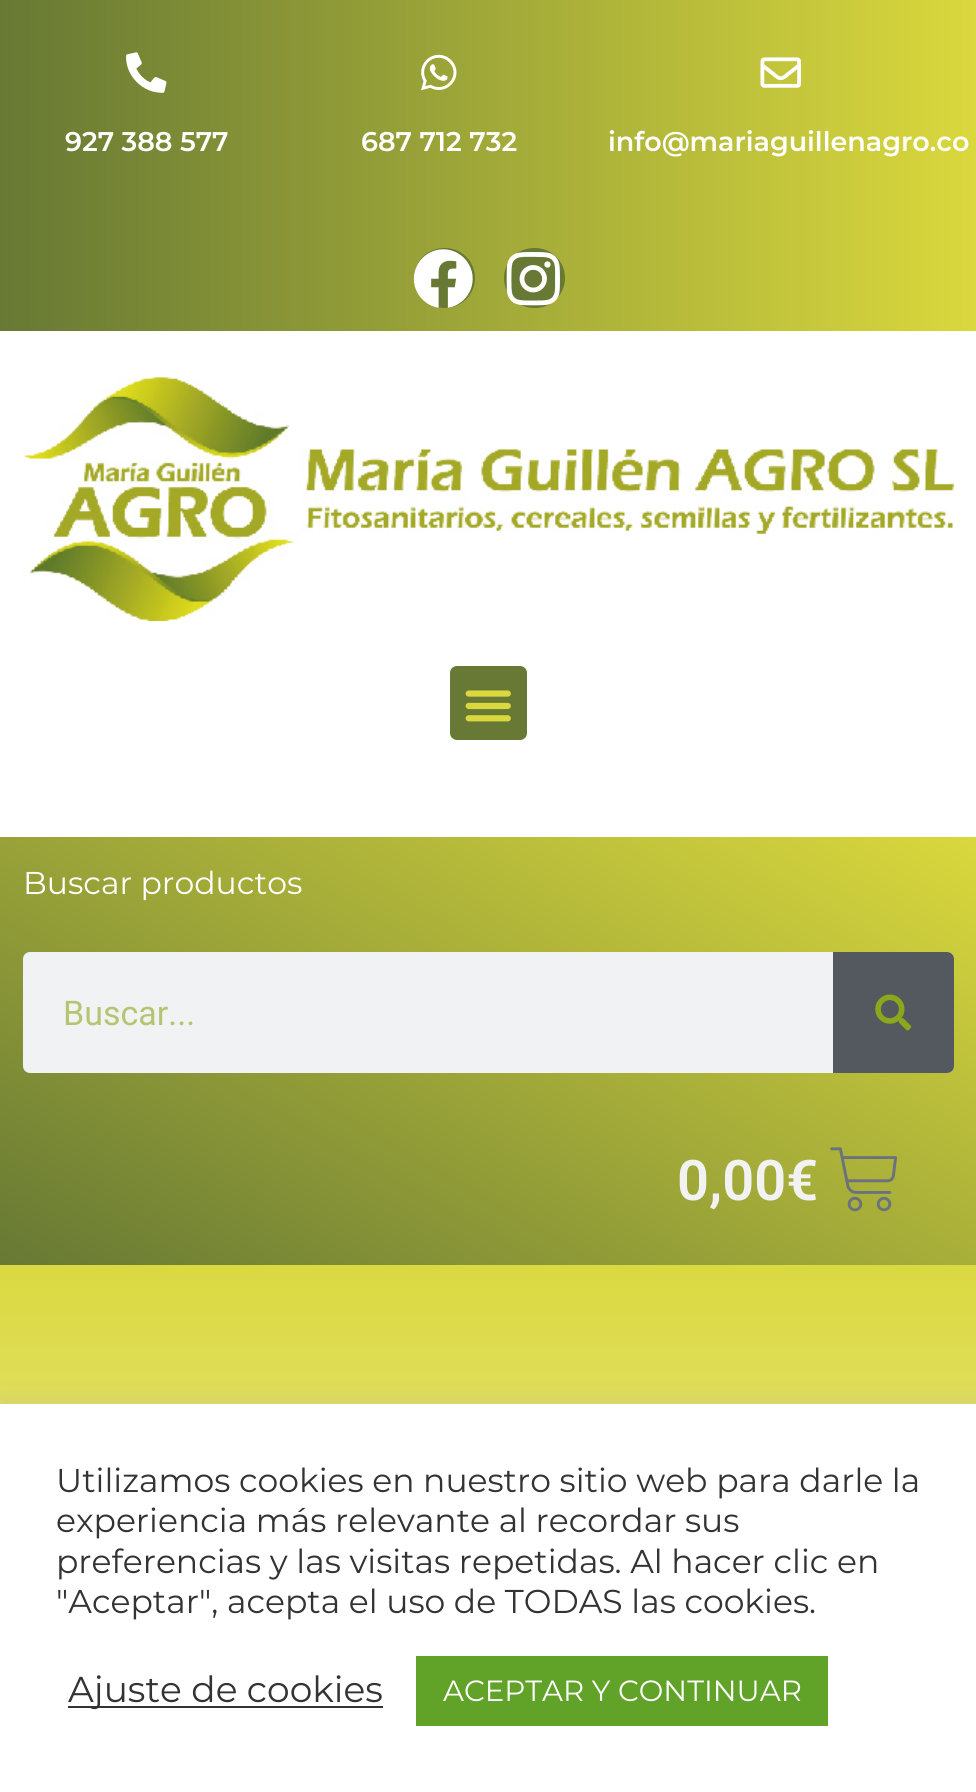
#include <cairo.h>
#include <math.h>
#include <stddef.h>

typedef struct { const char *family; double size; int italic, bold; unsigned color; } style_t;
static cairo_t *ctx;

static void ink(unsigned color) {
    cairo_set_source_rgb(ctx, (color >> 16) / 255.0, (color >> 8 & 255) / 255.0, (color & 255) / 255.0);
}

static void write(double x, double y, const char *s, const style_t *st) {
    cairo_select_font_face(ctx, st->family, st->italic ? CAIRO_FONT_SLANT_ITALIC : CAIRO_FONT_SLANT_NORMAL,
        st->bold ? CAIRO_FONT_WEIGHT_BOLD : CAIRO_FONT_WEIGHT_NORMAL);
    cairo_set_font_size(ctx, st->size);
    ink(st->color);
    cairo_move_to(ctx, x, y);
    cairo_show_text(ctx, s);
}

static void block(double x, double y, double w, double h, unsigned color) {
    ink(color);
    cairo_rectangle(ctx, x, y, w, h);
    cairo_fill(ctx);
}

static void round_path(double x, double y, double w, double h, double r) {
    cairo_new_sub_path(ctx);
    cairo_arc(ctx, x + w - r, y + h - r, r, 0, M_PI / 2);
    cairo_arc(ctx, x + r, y + h - r, r, M_PI / 2, M_PI);
    cairo_arc(ctx, x + r, y + r, r, M_PI, 1.5 * M_PI);
    cairo_arc(ctx, x + w - r, y + r, r, 1.5 * M_PI, 2 * M_PI);
    cairo_close_path(ctx);
}

static void blur_box(double x, double y, double w, double h, double r, double blur, double alpha) {
    cairo_push_group_with_content(ctx, CAIRO_CONTENT_ALPHA);
    cairo_set_operator(ctx, CAIRO_OPERATOR_SOURCE);
    for (int i = 15; i >= -15 && fmin(w, h) + blur * i / 3 > 0; i -= 2) {
        double e = blur * i / 6;
        cairo_set_source_rgba(ctx, 0, 0, 0, alpha * erfc((i - 1) / 8.5) / 2);
        round_path(x - e, y - e, w + 2 * e, h + 2 * e, fmax(0, fmin(r + e + blur * .6, fmin(w, h) / 2 + e)));
        cairo_fill(ctx);
    }
    cairo_pattern_t *soft = cairo_pop_group(ctx);
    cairo_mask(ctx, soft);
    cairo_pattern_destroy(soft);
}

static void paste(const char *path, double x, double y, double w, double h) {
    cairo_surface_t *image = cairo_image_surface_create_from_png(path);
    cairo_save(ctx);
    cairo_set_source_surface(ctx, image, x, y);
    cairo_rectangle(ctx, x, y, w, h);
    cairo_fill(ctx);
    cairo_restore(ctx);
    cairo_surface_destroy(image);
}

static const style_t s1 = {"Montserrat SemiBold", 27, 0, 0, 0xffffff};
static const style_t s2 = {"Montserrat", 31.5, 0, 0, 0xffffff};
static const style_t s3 = {"Roboto", 34, 0, 0, 0xb4c572};
static const style_t s4 = {"Roboto SemiBold", 56, 0, 0, 0xf2f2f2};
static const style_t s5 = {"Montserrat", 33, 0, 0, 0x333333};
static const style_t s6 = {"Montserrat", 36, 0, 0, 0x333333};
static const style_t s7 = {"Montserrat", 29.25, 0, 0, 0xffffff};

int main(void) {
    cairo_surface_t *surface = cairo_image_surface_create(CAIRO_FORMAT_RGB24, 976, 1792);
    ctx = cairo_create(surface);
    cairo_font_options_t *options = cairo_font_options_create();
    cairo_font_options_set_hint_metrics(options, CAIRO_HINT_METRICS_OFF);
    cairo_font_options_set_hint_style(options, CAIRO_HINT_STYLE_NONE);
    cairo_set_font_options(ctx, options);
    cairo_set_miter_limit(ctx, 4);
    cairo_pattern_t *gradient;
    ink(0xffffff);
    cairo_paint(ctx);
    gradient = cairo_pattern_create_linear(0, 165, 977, 165);
    cairo_pattern_add_color_stop_rgba(gradient, 0, 0.404, 0.475, 0.204, 1);
    cairo_pattern_add_color_stop_rgba(gradient, 1, 0.855, 0.847, 0.239, 1);
    cairo_set_source(ctx, gradient);
    cairo_pattern_destroy(gradient);
    cairo_rectangle(ctx, 0, 0, 976, 331);
    cairo_fill(ctx);
    paste("pic1.png", 126, 52, 41, 41);
    write(65, 151, "927 388 577", &s1);
    paste("pic2.png", 421, 54, 36, 37);
    write(361, 151, "687 712 732", &s1);
    paste("pic3.png", 760, 57, 41, 31);
    write(608, 151, "info@mariaguillenagro.co", &s1);
    ink(0x677934);
    round_path(414, 248, 61, 60, 30);
    cairo_fill(ctx);
    paste("pic4.png", 413, 249, 60, 59);
    round_path(504, 248, 61, 60, 30);
    cairo_fill(ctx);
    paste("pic5.png", 506, 252, 54, 54);
    paste("pic6.png", 23, 377, 931, 244);
    round_path(450, 666, 77, 74, 7);
    cairo_fill(ctx);
    paste("pic7.png", 465, 690, 46, 32);
    gradient = cairo_pattern_create_linear(703, 679, 274, 1422);
    cairo_pattern_add_color_stop_rgba(gradient, 0, 0.855, 0.847, 0.239, 1);
    cairo_pattern_add_color_stop_rgba(gradient, 1, 0.404, 0.475, 0.204, 1);
    cairo_set_source(ctx, gradient);
    cairo_pattern_destroy(gradient);
    cairo_rectangle(ctx, 0, 837, 976, 428);
    cairo_fill(ctx);
    write(23, 894, "Buscar productos", &s2);
    ink(0xf1f2f3);
    round_path(23, 952, 931, 121, 7);
    cairo_fill(ctx);
    write(63, 1025, "Buscar...", &s3);
    ink(0x54595f);
    cairo_new_path(ctx);
    cairo_move_to(ctx, 833, 952);
    cairo_line_to(ctx, 947, 952);
    cairo_curve_to(ctx, 951, 952, 954, 955, 954, 959);
    cairo_line_to(ctx, 954, 1066);
    cairo_curve_to(ctx, 954, 1070, 951, 1073, 947, 1073);
    cairo_line_to(ctx, 833, 1073);
    cairo_close_path(ctx);
    cairo_fill(ctx);
    paste("pic8.png", 875, 994, 37, 37);
    write(677, 1200, "0,00€", &s4);
    paste("pic9.png", 830, 1147, 67, 65);
    gradient = cairo_pattern_create_linear(488, 1242, 488, 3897);
    cairo_pattern_add_color_stop_rgba(gradient, 0, 0.855, 0.847, 0.239, 1);
    cairo_pattern_add_color_stop_rgba(gradient, 0.42, 1, 1, 1, 1);
    cairo_set_source(ctx, gradient);
    cairo_pattern_destroy(gradient);
    cairo_rectangle(ctx, 0, 1265, 976, 139);
    cairo_fill(ctx);
    ink(0xacabab);
    blur_box(0, 1402, 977, 389, 0, 11, 0.3);
    block(0, 1404, 976, 388, 0xffffff);
    write(56, 1492, "Utilizamos cookies en nuestro sitio web para darle la", &s5);
    write(56, 1532, "experiencia más relevante al recordar sus", &s5);
    write(56, 1573, "preferencias y las visitas repetidas. Al hacer clic en", &s5);
    write(56, 1613, "\"Aceptar\", acepta el uso de TODAS las cookies.", &s5);
    block(68, 1706, 315, 2, 0x333333);
    write(68, 1702, "Ajuste de cookies", &s6);
    block(416, 1656, 412, 70, 0x61a229);
    write(443, 1701, "ACEPTAR Y CONTINUAR", &s7);
    cairo_surface_write_to_png(surface, "screenshot.png");
    cairo_font_options_destroy(options);
    cairo_destroy(ctx);
    cairo_surface_destroy(surface);
    return 0;
}
